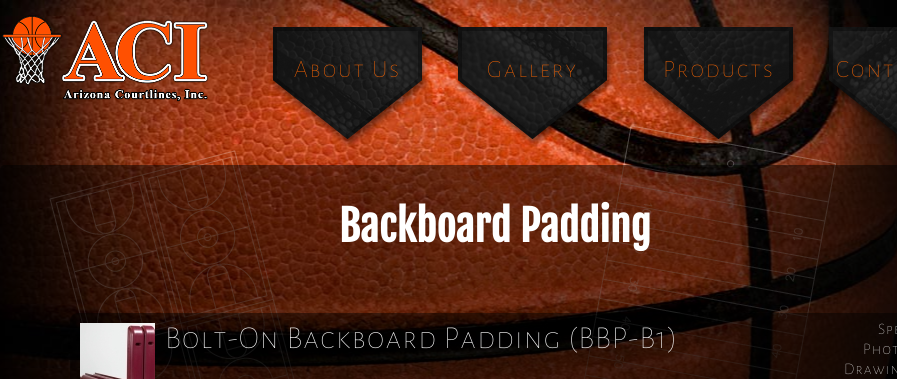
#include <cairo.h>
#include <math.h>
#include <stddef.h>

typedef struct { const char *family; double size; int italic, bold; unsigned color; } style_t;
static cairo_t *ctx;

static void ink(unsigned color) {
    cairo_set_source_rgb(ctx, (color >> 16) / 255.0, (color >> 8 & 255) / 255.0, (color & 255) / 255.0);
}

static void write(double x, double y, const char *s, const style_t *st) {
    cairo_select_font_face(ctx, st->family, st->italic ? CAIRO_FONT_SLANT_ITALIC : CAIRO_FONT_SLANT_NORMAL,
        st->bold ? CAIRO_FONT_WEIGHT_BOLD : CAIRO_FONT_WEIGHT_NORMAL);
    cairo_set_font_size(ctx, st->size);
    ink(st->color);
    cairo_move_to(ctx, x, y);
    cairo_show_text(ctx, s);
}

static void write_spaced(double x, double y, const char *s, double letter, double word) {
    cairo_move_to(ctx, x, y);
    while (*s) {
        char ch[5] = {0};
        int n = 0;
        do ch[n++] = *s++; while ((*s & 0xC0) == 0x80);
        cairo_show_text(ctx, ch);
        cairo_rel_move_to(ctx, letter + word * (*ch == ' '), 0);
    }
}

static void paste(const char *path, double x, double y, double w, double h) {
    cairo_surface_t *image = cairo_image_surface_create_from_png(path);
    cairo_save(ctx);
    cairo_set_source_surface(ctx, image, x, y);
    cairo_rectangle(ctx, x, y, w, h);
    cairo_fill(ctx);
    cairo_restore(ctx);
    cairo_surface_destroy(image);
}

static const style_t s1 = {"Fjalla One", 42, 0, 1, 0xffffff};

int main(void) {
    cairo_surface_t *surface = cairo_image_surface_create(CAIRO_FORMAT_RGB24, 897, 379);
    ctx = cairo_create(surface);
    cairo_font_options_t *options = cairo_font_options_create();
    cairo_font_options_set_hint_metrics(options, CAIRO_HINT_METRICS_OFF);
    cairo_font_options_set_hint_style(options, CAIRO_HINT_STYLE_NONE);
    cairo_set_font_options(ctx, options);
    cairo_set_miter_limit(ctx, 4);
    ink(0xffffff);
    cairo_paint(ctx);
    paste("pic1.png", 0, 0, 897, 379);
    paste("pic2.png", 49, 150, 246, 229);
    paste("pic3.png", 584, 125, 252, 254);
    paste("pic4.png", 2, 15, 207, 87);
    paste("pic5.png", 270, 27, 627, 120);
    cairo_select_font_face(ctx, "Alegreya Sans SC Thin", CAIRO_FONT_SLANT_NORMAL, CAIRO_FONT_WEIGHT_NORMAL);
    cairo_set_font_size(ctx, 25);
    ink(0xff6600);
    write_spaced(294, 77, "About Us", 1.75, 0);
    write_spaced(487, 77, "Gallery", 1.75, 0);
    write_spaced(663, 77, "Products", 1.75, 0);
    write_spaced(836, 77, "Cont", 1.75, 0);
    cairo_set_source_rgba(ctx, 0, 0, 0, 0.5);
    cairo_new_path(ctx);
    cairo_move_to(ctx, 5, 165);
    cairo_line_to(ctx, 897, 165);
    cairo_line_to(ctx, 897, 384);
    cairo_line_to(ctx, 5, 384);
    cairo_curve_to(ctx, 2, 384, 0, 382, 0, 379);
    cairo_line_to(ctx, 0, 170);
    cairo_curve_to(ctx, 0, 167, 2, 165, 5, 165);
    cairo_close_path(ctx);
    cairo_fill(ctx);
    write(339, 242, "Backboard Padding", &s1);
    cairo_set_source_rgba(ctx, 0, 0, 0, 0.45);
    cairo_new_path(ctx);
    cairo_move_to(ctx, 78, 313);
    cairo_line_to(ctx, 897, 313);
    cairo_line_to(ctx, 897, 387);
    cairo_line_to(ctx, 78, 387);
    cairo_curve_to(ctx, 73.5, 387, 70, 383.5, 70, 379);
    cairo_line_to(ctx, 70, 321);
    cairo_curve_to(ctx, 70, 316.5, 73.5, 313, 78, 313);
    cairo_close_path(ctx);
    cairo_fill(ctx);
    paste("pic6.png", 80, 323, 75, 56);
    cairo_select_font_face(ctx, "Alegreya Sans SC Thin", CAIRO_FONT_SLANT_NORMAL, CAIRO_FONT_WEIGHT_NORMAL);
    cairo_set_font_size(ctx, 32);
    ink(0xffffff);
    write_spaced(165, 348, "Bolt-On Backboard Padding (BBP-B1)", 1, 0);
    cairo_set_font_size(ctx, 16);
    write_spaced(878, 334, "Spe", 1, 0);
    write_spaced(863, 354, "Phot", 1, 0);
    write_spaced(844, 374, "Drawin", 1, 0);
    cairo_surface_write_to_png(surface, "screenshot.png");
    cairo_font_options_destroy(options);
    cairo_destroy(ctx);
    cairo_surface_destroy(surface);
    return 0;
}
